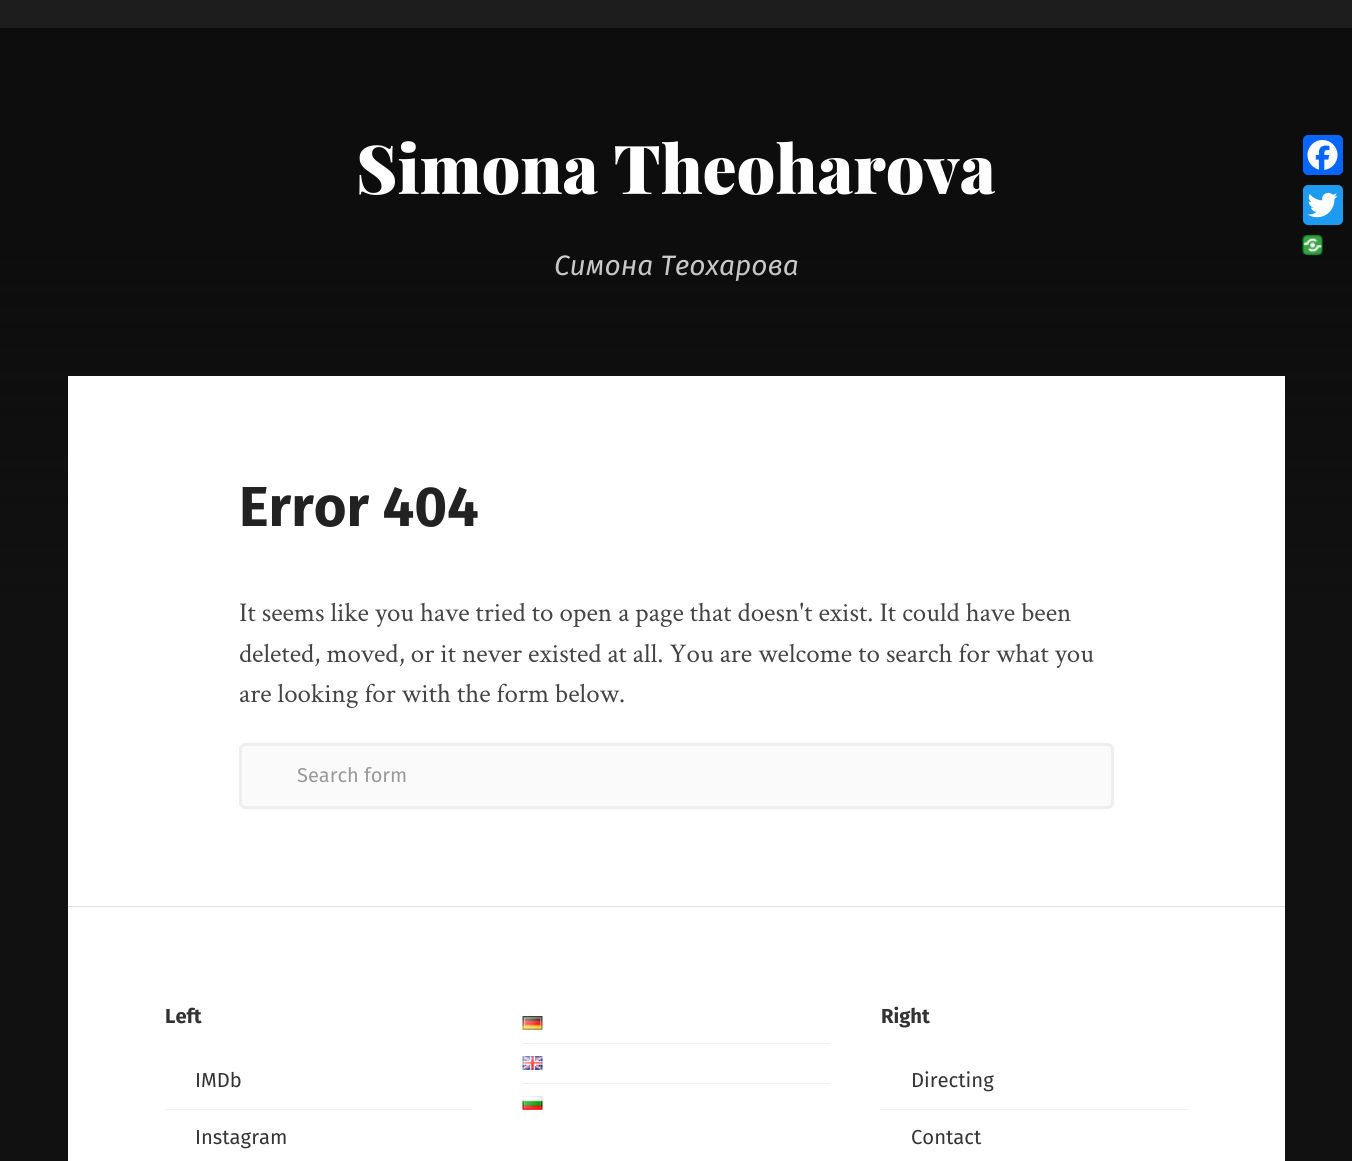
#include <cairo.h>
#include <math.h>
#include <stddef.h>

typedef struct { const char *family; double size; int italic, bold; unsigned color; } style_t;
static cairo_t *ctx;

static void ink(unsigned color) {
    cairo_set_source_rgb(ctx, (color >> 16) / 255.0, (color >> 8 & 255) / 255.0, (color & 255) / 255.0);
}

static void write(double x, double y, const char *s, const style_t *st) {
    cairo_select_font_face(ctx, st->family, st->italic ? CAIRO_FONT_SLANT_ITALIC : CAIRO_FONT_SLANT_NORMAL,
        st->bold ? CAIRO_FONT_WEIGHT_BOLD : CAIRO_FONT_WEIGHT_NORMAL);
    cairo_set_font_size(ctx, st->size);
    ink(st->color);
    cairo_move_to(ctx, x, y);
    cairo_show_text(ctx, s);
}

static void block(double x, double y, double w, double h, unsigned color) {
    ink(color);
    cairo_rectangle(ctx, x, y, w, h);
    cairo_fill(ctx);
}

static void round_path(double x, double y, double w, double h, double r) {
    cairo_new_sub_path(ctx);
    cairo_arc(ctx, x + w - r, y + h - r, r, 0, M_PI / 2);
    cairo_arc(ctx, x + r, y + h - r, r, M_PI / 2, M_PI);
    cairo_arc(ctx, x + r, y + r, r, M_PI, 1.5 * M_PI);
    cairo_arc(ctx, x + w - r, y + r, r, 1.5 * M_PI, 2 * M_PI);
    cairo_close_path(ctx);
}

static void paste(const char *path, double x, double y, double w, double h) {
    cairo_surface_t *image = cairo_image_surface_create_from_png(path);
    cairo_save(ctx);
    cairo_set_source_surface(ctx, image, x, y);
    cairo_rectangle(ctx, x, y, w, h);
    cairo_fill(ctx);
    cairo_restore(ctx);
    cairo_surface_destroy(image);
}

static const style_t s1 = {"Playfair Display Black", 67.5, 0, 0, 0xffffff};
static const style_t s2 = {"Fira Sans", 28.1, 1, 0, 0xcfcfcf};
static const style_t s3 = {"Fira Sans", 56.25, 0, 1, 0x222222};
static const style_t s4 = {"Crimson Text", 27, 0, 0, 0x444444};
static const style_t s5 = {"Fira Sans", 20, 0, 0, 0x999999};
static const style_t s6 = {"Fira Sans", 20.25, 0, 1, 0x333333};
static const style_t s7 = {"Fira Sans", 20.25, 0, 0, 0x333333};

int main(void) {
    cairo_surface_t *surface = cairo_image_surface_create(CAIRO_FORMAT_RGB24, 1352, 1161);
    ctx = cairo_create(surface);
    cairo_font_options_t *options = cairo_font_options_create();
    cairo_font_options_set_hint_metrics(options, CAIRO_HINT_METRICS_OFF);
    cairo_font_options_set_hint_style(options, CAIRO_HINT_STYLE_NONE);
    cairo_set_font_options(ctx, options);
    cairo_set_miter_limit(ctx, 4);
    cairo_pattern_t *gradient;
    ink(0x0d0d0d);
    cairo_paint(ctx);
    block(0, 0, 1352, 28, 0x1d1d1d);
    write(356, 194, "Simona Theoharova", &s1);
    write(554, 275, "Симона Теохарова", &s2);
    ink(0x0866ff);
    round_path(1303, 135, 40, 40, 5);
    cairo_fill(ctx);
    paste("pic1.png", 1307, 140, 31, 30);
    ink(0x1d9bf0);
    round_path(1303, 185, 40, 40, 5);
    cairo_fill(ctx);
    paste("pic2.png", 1307, 192, 31, 26);
    paste("pic3.png", 1302, 235, 21, 20);
    gradient = cairo_pattern_create_linear(676, 251, 676, 626);
    cairo_pattern_add_color_stop_rgba(gradient, 0, 0.067, 0.067, 0.067, 0);
    cairo_pattern_add_color_stop_rgba(gradient, 1, 0.067, 0.067, 0.067, 1);
    cairo_set_source(ctx, gradient);
    cairo_pattern_destroy(gradient);
    cairo_rectangle(ctx, 0, 259, 1352, 367);
    cairo_fill(ctx);
    block(0, 626, 1352, 535, 0x111111);
    block(68, 376, 1217, 785, 0xffffff);
    write(239, 526, "Error 404", &s3);
    write(239, 621, "It seems like you have tried to open a page that doesn't exist. It could have been", &s4);
    write(239, 662, "deleted, moved, or it never existed at all. You are welcome to search for what you", &s4);
    write(239, 702, "are looking for with the form below.", &s4);
    ink(0xfafafa);
    round_path(240.5, 744.5, 872, 63, 4.5);
    cairo_fill_preserve(ctx);
    ink(0xeeeeee);
    cairo_set_line_width(ctx, 3);
    cairo_stroke(ctx);
    write(297, 782, "Search form", &s5);
    block(68, 906, 1217, 1, 0xdddddd);
    write(165, 1023, "Left", &s6);
    block(165, 1109, 306, 1, 0xeeeeee);
    write(195, 1087, "IMDb", &s7);
    write(195, 1144, "Instagram", &s7);
    block(523, 1043, 307, 1, 0xeeeeee);
    paste("pic4.png", 522, 1016, 21, 14);
    block(523, 1083, 307, 1, 0xeeeeee);
    paste("pic5.png", 522, 1056, 21, 14);
    paste("pic6.png", 522, 1096, 21, 14);
    write(881, 1023, "Right", &s6);
    block(881, 1109, 307, 1, 0xeeeeee);
    write(911, 1087, "Directing", &s7);
    write(911, 1144, "Contact", &s7);
    cairo_surface_write_to_png(surface, "screenshot.png");
    cairo_font_options_destroy(options);
    cairo_destroy(ctx);
    cairo_surface_destroy(surface);
    return 0;
}
